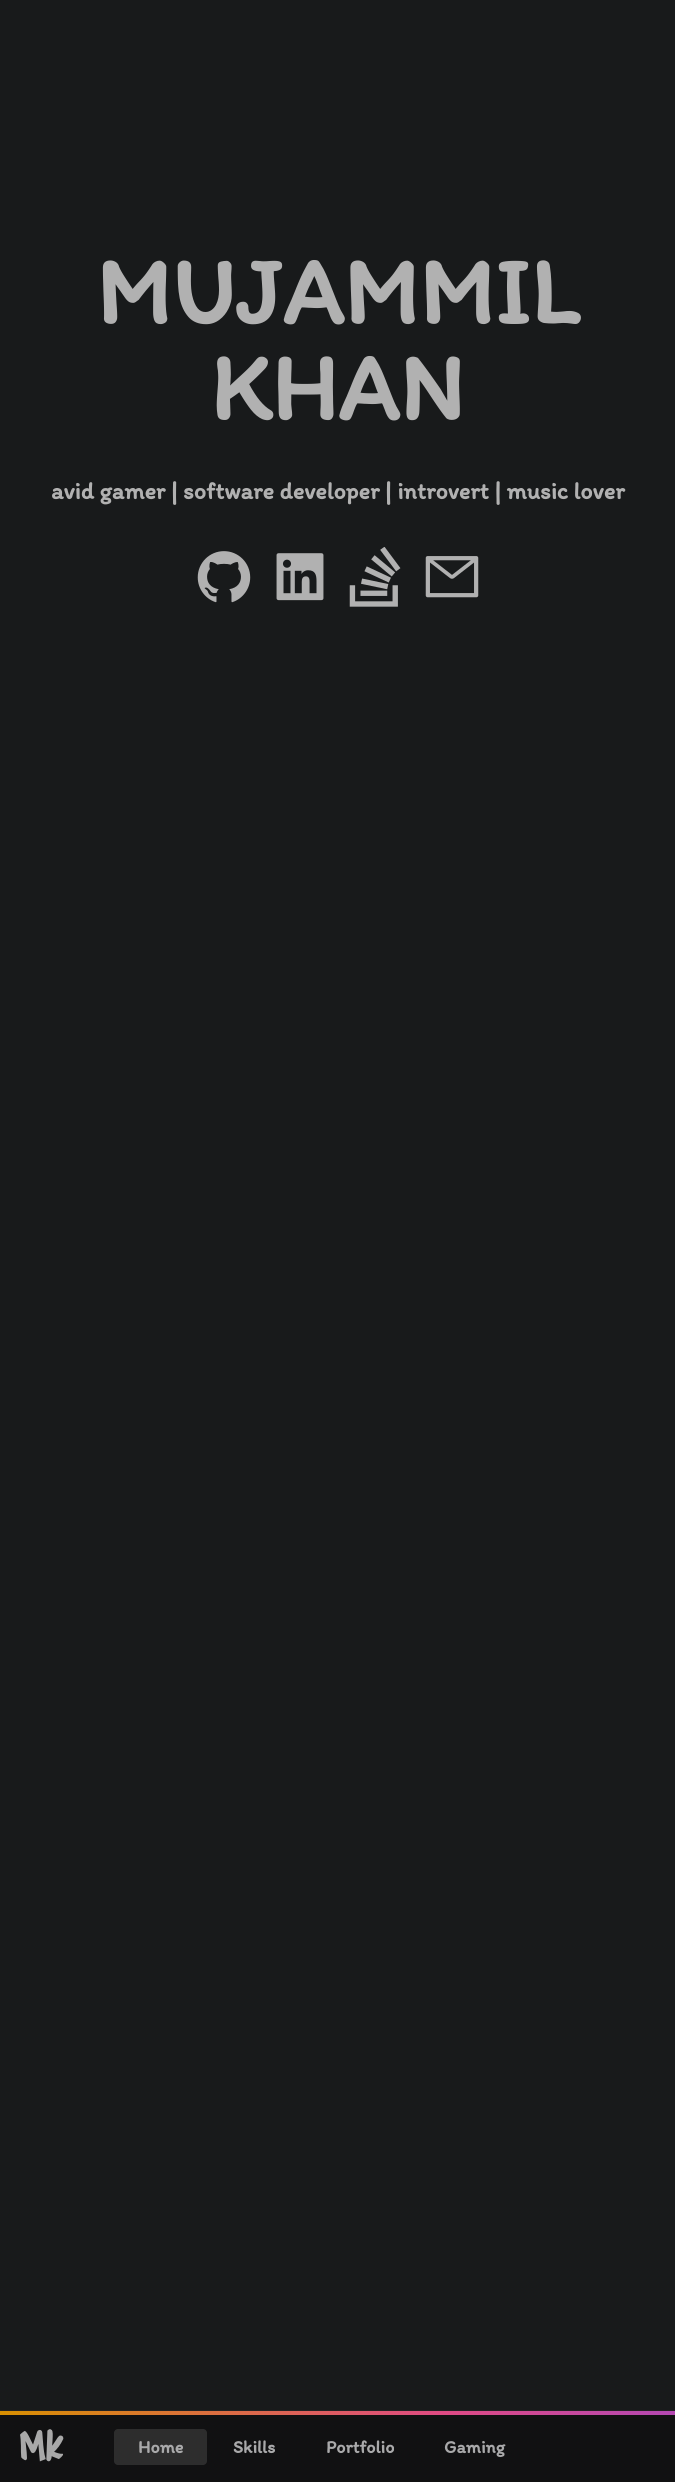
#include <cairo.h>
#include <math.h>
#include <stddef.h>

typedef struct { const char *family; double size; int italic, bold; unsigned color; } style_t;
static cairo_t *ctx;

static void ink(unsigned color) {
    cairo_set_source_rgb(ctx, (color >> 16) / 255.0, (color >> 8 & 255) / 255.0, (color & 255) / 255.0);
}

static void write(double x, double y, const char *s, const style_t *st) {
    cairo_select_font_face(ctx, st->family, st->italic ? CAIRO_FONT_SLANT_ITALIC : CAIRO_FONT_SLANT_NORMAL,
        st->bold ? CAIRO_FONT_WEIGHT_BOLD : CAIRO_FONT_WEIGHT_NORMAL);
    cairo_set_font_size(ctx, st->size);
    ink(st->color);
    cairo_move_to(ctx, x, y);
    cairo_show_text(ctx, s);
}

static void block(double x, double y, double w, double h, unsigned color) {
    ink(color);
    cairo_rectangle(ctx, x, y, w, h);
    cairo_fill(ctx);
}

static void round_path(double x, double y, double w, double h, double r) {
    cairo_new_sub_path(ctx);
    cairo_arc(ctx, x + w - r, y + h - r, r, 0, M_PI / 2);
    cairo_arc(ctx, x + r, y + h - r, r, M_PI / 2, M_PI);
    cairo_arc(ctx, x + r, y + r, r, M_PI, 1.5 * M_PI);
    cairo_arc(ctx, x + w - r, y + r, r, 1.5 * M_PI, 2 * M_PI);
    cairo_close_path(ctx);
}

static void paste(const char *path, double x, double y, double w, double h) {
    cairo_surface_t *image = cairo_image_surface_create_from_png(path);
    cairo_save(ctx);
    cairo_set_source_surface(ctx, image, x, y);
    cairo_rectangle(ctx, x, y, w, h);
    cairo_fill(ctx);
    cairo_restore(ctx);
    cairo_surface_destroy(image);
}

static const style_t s1 = {"Itim", 96, 0, 1, 0xb1b1b1};
static const style_t s2 = {"Itim", 24, 0, 1, 0xb1b1b1};
static const style_t s3 = {"Itim", 18, 0, 1, 0xa9a9aa};

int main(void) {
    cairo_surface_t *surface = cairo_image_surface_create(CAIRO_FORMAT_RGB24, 675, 2482);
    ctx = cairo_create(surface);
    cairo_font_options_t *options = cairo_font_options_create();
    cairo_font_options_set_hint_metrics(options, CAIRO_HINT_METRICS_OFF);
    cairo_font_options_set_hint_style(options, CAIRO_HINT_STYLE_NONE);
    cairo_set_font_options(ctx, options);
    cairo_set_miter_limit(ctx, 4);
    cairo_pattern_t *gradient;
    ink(0x181a1b);
    cairo_paint(ctx);
    write(96, 324, "MUJAMMIL", &s1);
    write(210, 420, "KHAN", &s1);
    write(51, 499, "avid gamer | software developer | introvert | music lover", &s2);
    paste("pic1.png", 197, 551, 54, 52);
    paste("pic2.png", 276, 553, 48, 48);
    paste("pic3.png", 349, 547, 52, 60);
    paste("pic4.png", 425, 556, 54, 42);
    block(0, 2415, 675, 67, 0x111112);
    block(0, 2410, 675, 1, 0x232424);
    gradient = cairo_pattern_create_linear(0, 2413, 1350, 2413);
    cairo_pattern_add_color_stop_rgba(gradient, 0, 0.851, 0.565, 0.004, 1);
    cairo_pattern_add_color_stop_rgba(gradient, 0.33, 0.878, 0.29, 0.518, 1);
    cairo_pattern_add_color_stop_rgba(gradient, 0.67, 0.537, 0.275, 0.882, 1);
    cairo_pattern_add_color_stop_rgba(gradient, 1, 0.114, 0.604, 0.906, 1);
    cairo_set_source(ctx, gradient);
    cairo_pattern_destroy(gradient);
    cairo_rectangle(ctx, 0, 2411, 675, 4);
    cairo_fill(ctx);
    paste("pic5.png", 20, 2429, 44, 33);
    ink(0x2d2d2d);
    round_path(114, 2429, 93, 36, 4);
    cairo_fill(ctx);
    write(138, 2453, "Home", &s3);
    write(233, 2453, "Skills", &s3);
    write(326, 2453, "Portfolio", &s3);
    write(444, 2453, "Gaming", &s3);
    cairo_surface_write_to_png(surface, "screenshot.png");
    cairo_font_options_destroy(options);
    cairo_destroy(ctx);
    cairo_surface_destroy(surface);
    return 0;
}
